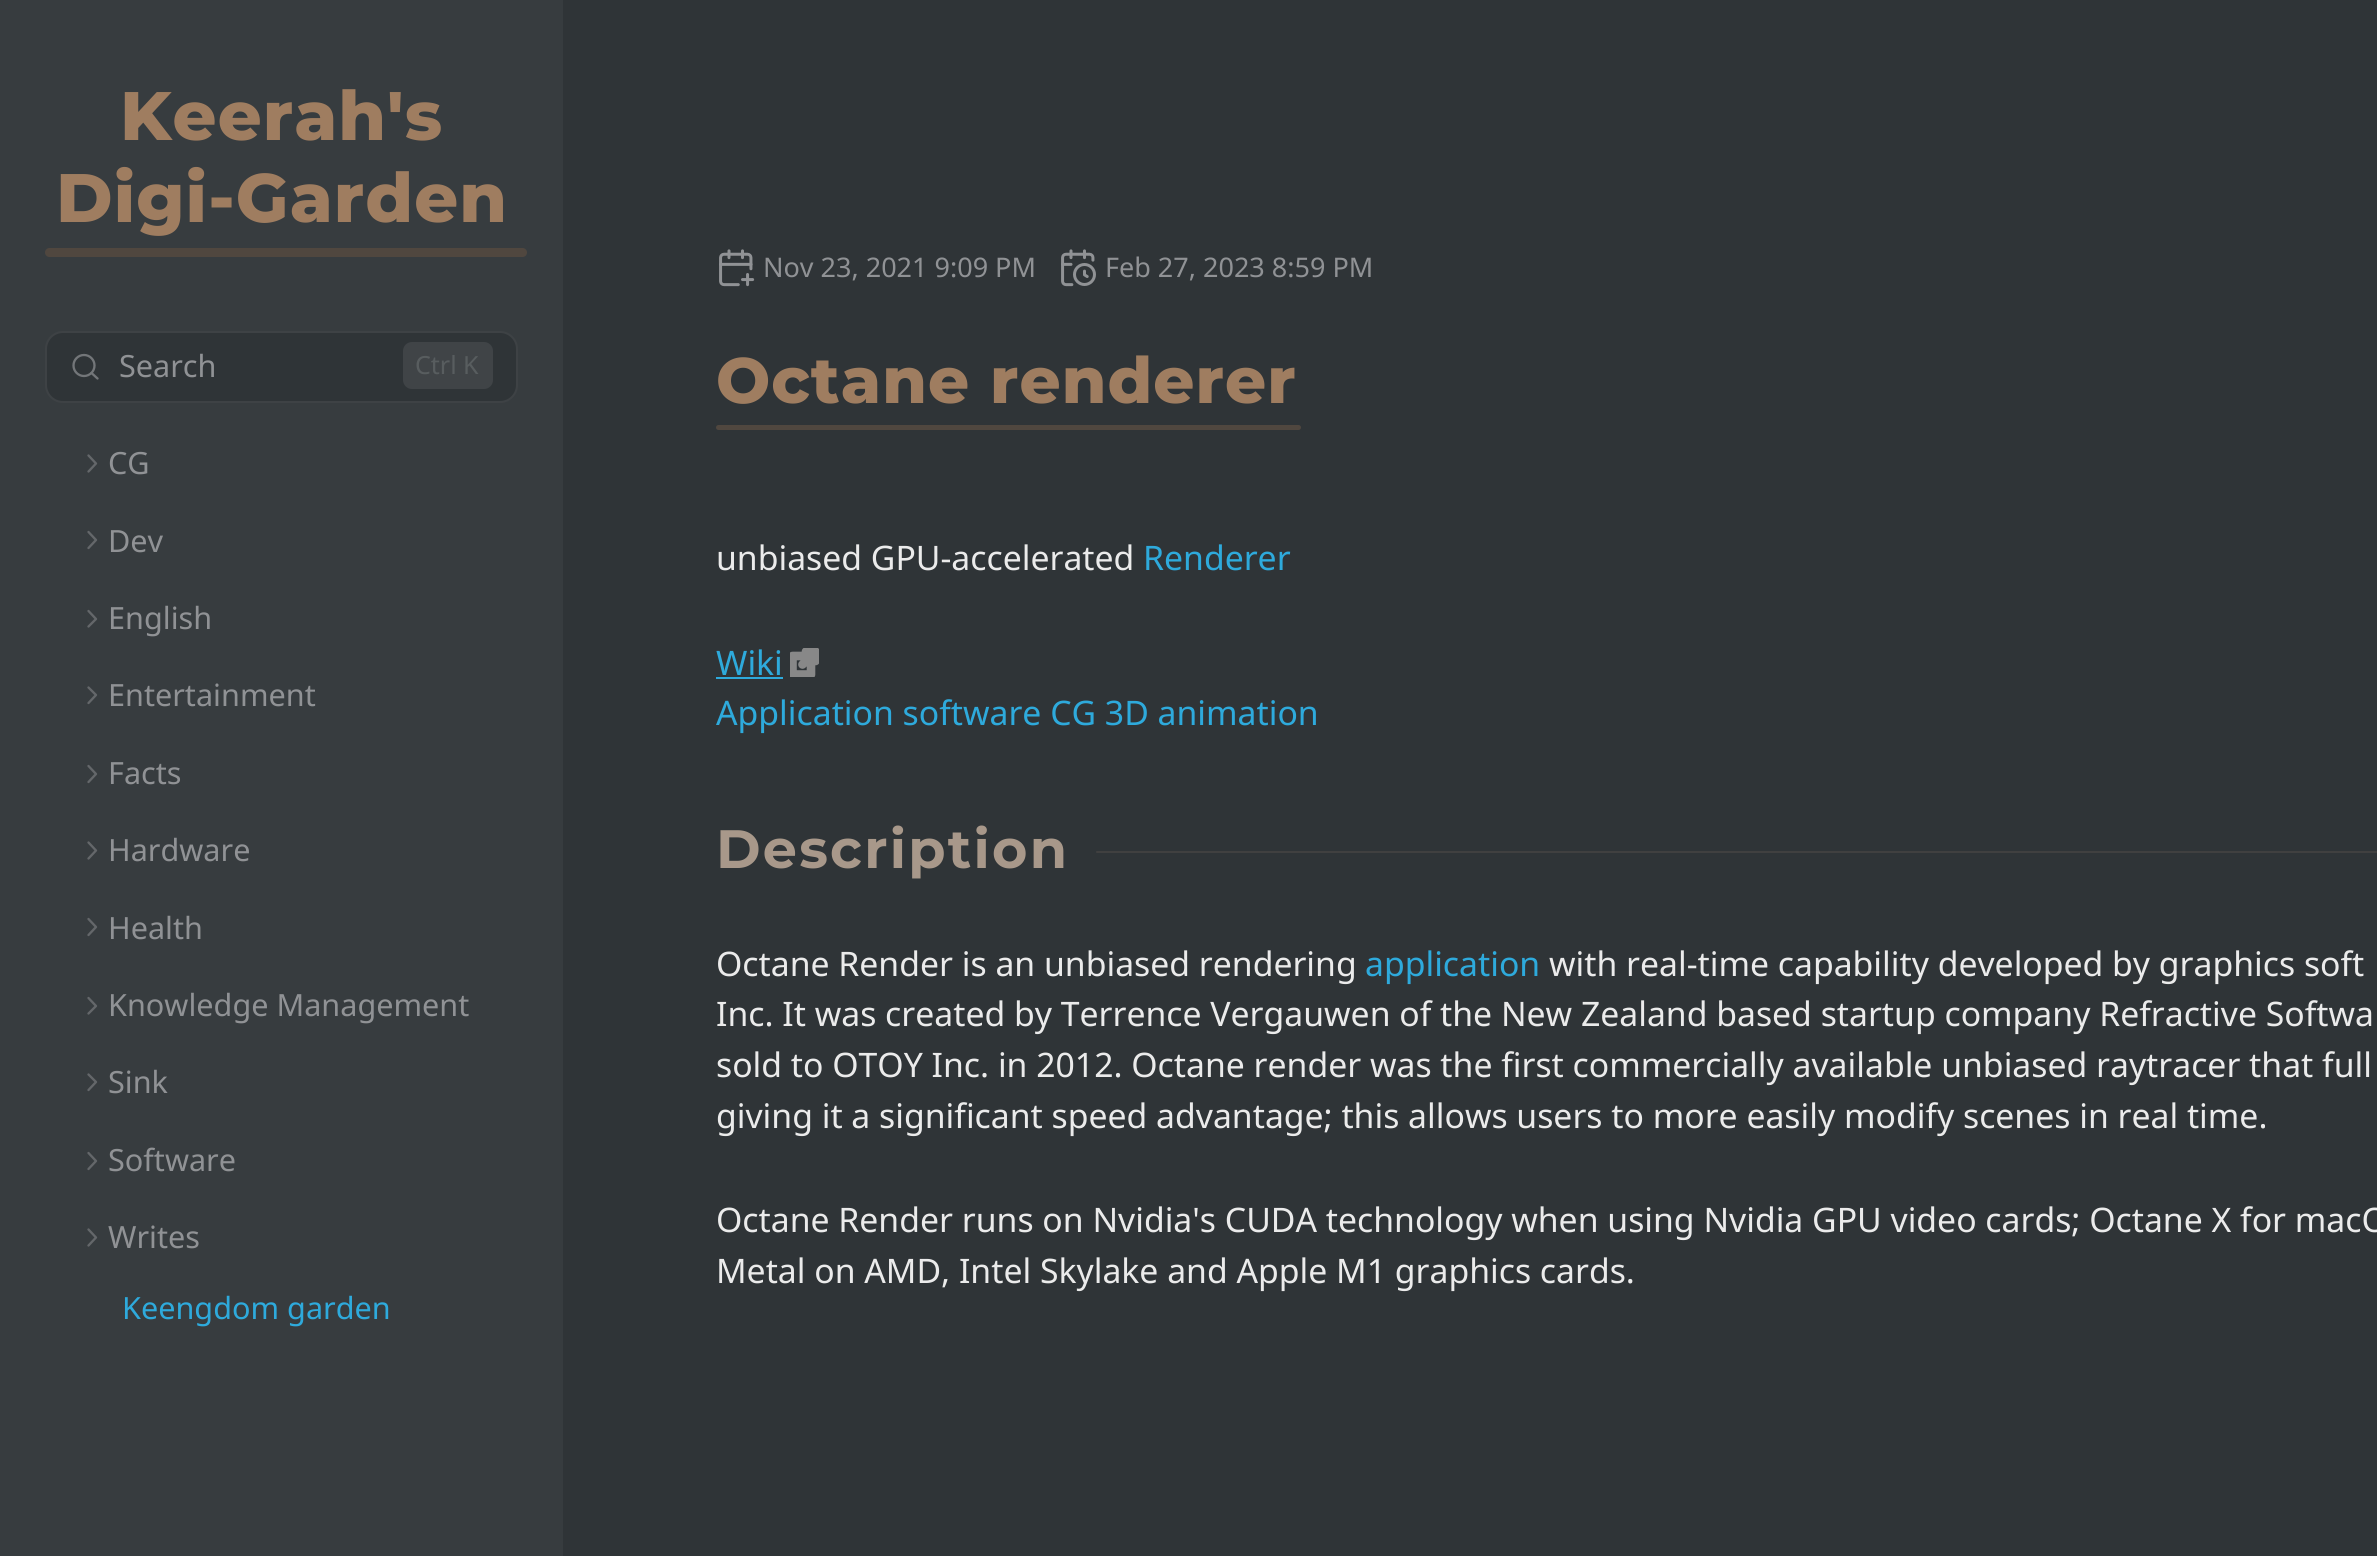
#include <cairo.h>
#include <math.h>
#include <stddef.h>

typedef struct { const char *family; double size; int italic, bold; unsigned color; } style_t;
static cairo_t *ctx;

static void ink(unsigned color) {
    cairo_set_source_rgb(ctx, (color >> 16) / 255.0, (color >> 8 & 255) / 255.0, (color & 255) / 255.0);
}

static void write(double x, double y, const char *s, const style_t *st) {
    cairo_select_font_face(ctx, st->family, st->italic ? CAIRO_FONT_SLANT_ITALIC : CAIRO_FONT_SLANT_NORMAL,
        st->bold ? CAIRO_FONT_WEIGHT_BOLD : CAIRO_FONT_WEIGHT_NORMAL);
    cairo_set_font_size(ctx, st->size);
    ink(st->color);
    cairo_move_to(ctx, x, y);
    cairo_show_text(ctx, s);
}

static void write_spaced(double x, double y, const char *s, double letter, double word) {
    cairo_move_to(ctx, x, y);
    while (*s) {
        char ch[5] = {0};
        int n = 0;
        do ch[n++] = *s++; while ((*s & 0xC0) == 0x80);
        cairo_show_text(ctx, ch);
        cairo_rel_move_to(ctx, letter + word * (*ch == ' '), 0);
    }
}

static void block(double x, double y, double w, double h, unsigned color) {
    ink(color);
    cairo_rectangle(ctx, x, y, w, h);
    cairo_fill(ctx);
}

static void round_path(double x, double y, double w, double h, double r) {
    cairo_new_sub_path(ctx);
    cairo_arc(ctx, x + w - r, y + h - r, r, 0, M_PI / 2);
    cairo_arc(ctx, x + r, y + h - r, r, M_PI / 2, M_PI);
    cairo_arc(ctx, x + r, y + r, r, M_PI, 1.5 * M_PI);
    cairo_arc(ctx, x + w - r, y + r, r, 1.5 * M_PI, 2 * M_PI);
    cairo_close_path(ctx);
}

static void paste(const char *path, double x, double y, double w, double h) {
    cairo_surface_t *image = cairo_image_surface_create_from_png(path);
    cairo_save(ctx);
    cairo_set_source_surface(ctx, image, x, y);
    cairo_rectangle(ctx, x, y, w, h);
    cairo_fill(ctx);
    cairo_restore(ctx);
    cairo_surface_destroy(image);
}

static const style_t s1 = {"Noto Sans", 30.6, 0, 0, 0x909295};
static const style_t s2 = {"Noto Sans", 25, 0, 0, 0x585d5f};
static const style_t s3 = {"Noto Sans", 30.6, 0, 0, 0x2eaadc};
static const style_t s4 = {"Noto Sans", 27, 0, 0, 0x909295};
static const style_t s5 = {"Noto Sans", 33.75, 0, 0, 0xebebeb};
static const style_t s6 = {"Noto Sans", 33.75, 0, 0, 0x2eaadc};

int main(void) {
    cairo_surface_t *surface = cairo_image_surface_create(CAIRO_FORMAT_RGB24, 2377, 1556);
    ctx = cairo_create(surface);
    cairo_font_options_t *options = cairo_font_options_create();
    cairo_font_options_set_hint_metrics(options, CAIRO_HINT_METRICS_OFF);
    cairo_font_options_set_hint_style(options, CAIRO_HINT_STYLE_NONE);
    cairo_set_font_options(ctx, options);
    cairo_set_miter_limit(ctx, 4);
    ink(0x2f3437);
    cairo_paint(ctx);
    block(0, 0, 563, 1556, 0x373c3f);
    cairo_select_font_face(ctx, "Montserrat ExtraBold", CAIRO_FONT_SLANT_NORMAL, CAIRO_FONT_WEIGHT_NORMAL);
    cairo_set_font_size(ctx, 68.5);
    ink(0x9f7d60);
    write_spaced(120, 140, "Keerah's", 1.1, 0);
    write_spaced(56, 222, "Digi-Garden", 1.1, 0);
    ink(0x50473f);
    round_path(45, 248, 482, 9, 4.5);
    cairo_fill(ctx);
    ink(0x2f3437);
    round_path(46, 332, 471, 70, 17);
    cairo_fill_preserve(ctx);
    ink(0x3e4245);
    cairo_stroke(ctx);
    cairo_new_path(ctx);
    cairo_move_to(ctx, 97.5, 378.5);
    cairo_line_to(ctx, 91.5, 373);
    ink(0x737679);
    cairo_set_line_width(ctx, 2.3);
    cairo_set_line_cap(ctx, CAIRO_LINE_CAP_ROUND);
    cairo_set_line_join(ctx, CAIRO_LINE_JOIN_ROUND);
    cairo_stroke(ctx);
    cairo_arc(ctx, 84, 365.5, 10.5, 0, 2 * M_PI);
    cairo_set_line_cap(ctx, CAIRO_LINE_CAP_BUTT);
    cairo_set_line_join(ctx, CAIRO_LINE_JOIN_MITER);
    cairo_stroke(ctx);
    write(119, 377, "Search", &s1);
    ink(0x404447);
    round_path(403, 342, 90, 47, 9);
    cairo_fill(ctx);
    write(415, 374, "Ctrl K", &s2);
    cairo_new_path(ctx);
    cairo_move_to(ctx, 88.5, 471.5);
    cairo_line_to(ctx, 96, 463.5);
    cairo_line_to(ctx, 88.5, 455.5);
    ink(0x64676a);
    cairo_set_line_cap(ctx, CAIRO_LINE_CAP_ROUND);
    cairo_set_line_join(ctx, CAIRO_LINE_JOIN_ROUND);
    cairo_stroke(ctx);
    write(108, 474, "CG", &s1);
    cairo_new_path(ctx);
    cairo_move_to(ctx, 88.5, 548);
    cairo_line_to(ctx, 96, 540);
    cairo_line_to(ctx, 88.5, 532);
    ink(0x64676a);
    cairo_stroke(ctx);
    write(108, 552, "Dev", &s1);
    cairo_new_path(ctx);
    cairo_move_to(ctx, 88.5, 626.5);
    cairo_line_to(ctx, 96, 619);
    cairo_line_to(ctx, 88.5, 611);
    ink(0x64676a);
    cairo_stroke(ctx);
    write(108, 629, "English", &s1);
    cairo_new_path(ctx);
    cairo_move_to(ctx, 88.5, 703);
    cairo_line_to(ctx, 96, 695);
    cairo_line_to(ctx, 88.5, 687.5);
    ink(0x64676a);
    cairo_stroke(ctx);
    write(108, 706, "Entertainment", &s1);
    cairo_new_path(ctx);
    cairo_move_to(ctx, 88.5, 782);
    cairo_line_to(ctx, 96, 774);
    cairo_line_to(ctx, 88.5, 766);
    ink(0x64676a);
    cairo_stroke(ctx);
    write(108, 784, "Facts", &s1);
    cairo_new_path(ctx);
    cairo_move_to(ctx, 88.5, 858.5);
    cairo_line_to(ctx, 96, 850.5);
    cairo_line_to(ctx, 88.5, 842.5);
    ink(0x64676a);
    cairo_stroke(ctx);
    write(108, 861, "Hardware", &s1);
    cairo_new_path(ctx);
    cairo_move_to(ctx, 88.5, 935);
    cairo_line_to(ctx, 96, 927);
    cairo_line_to(ctx, 88.5, 919);
    ink(0x64676a);
    cairo_stroke(ctx);
    write(108, 939, "Health", &s1);
    cairo_new_path(ctx);
    cairo_move_to(ctx, 88.5, 1013.5);
    cairo_line_to(ctx, 96, 1006);
    cairo_line_to(ctx, 88.5, 998);
    ink(0x64676a);
    cairo_stroke(ctx);
    write(108, 1016, "Knowledge Management", &s1);
    cairo_new_path(ctx);
    cairo_move_to(ctx, 88.5, 1090);
    cairo_line_to(ctx, 96, 1082);
    cairo_line_to(ctx, 88.5, 1074.5);
    ink(0x64676a);
    cairo_stroke(ctx);
    write(108, 1093, "Sink", &s1);
    cairo_new_path(ctx);
    cairo_move_to(ctx, 88.5, 1169);
    cairo_line_to(ctx, 96, 1161);
    cairo_line_to(ctx, 88.5, 1153);
    ink(0x64676a);
    cairo_stroke(ctx);
    write(108, 1171, "Software", &s1);
    cairo_new_path(ctx);
    cairo_move_to(ctx, 88.5, 1245.5);
    cairo_line_to(ctx, 96, 1237.5);
    cairo_line_to(ctx, 88.5, 1229.5);
    ink(0x64676a);
    cairo_stroke(ctx);
    write(108, 1248, "Writes", &s1);
    write(122, 1319, "Keengdom garden", &s3);
    paste("pic1.png", 719, 249, 36, 38);
    write(763, 277, "Nov 23, 2021 9:09 PM", &s4);
    paste("pic2.png", 1061, 249, 35, 38);
    write(1105, 277, "Feb 27, 2023 8:59 PM", &s4);
    cairo_select_font_face(ctx, "Montserrat ExtraBold", CAIRO_FONT_SLANT_NORMAL, CAIRO_FONT_WEIGHT_NORMAL);
    cairo_set_font_size(ctx, 64.1);
    ink(0x9f7d60);
    write_spaced(716, 403, "Octane renderer", 1.1, 0);
    ink(0x50473f);
    round_path(716, 425, 585, 5, 2.5);
    cairo_fill(ctx);
    write(716, 570, "unbiased GPU-accelerated", &s5);
    write(1143, 570, "Renderer", &s6);
    write(716, 675, "Wiki", &s6);
    cairo_save(ctx);
    cairo_rectangle(ctx, 790, 648, 29, 29);
    cairo_clip(ctx);
    cairo_new_path(ctx);
    cairo_move_to(ctx, 802.5, 656);
    cairo_line_to(ctx, 792.5, 656);
    cairo_line_to(ctx, 792.5, 674.5);
    cairo_line_to(ctx, 811, 674.5);
    cairo_line_to(ctx, 811, 664.5);
    cairo_move_to(ctx, 806, 651.5);
    cairo_line_to(ctx, 815.5, 651.5);
    cairo_line_to(ctx, 815.5, 661);
    cairo_move_to(ctx, 815.5, 651.5);
    cairo_line_to(ctx, 802.5, 664.5);
    ink(0x888888);
    cairo_set_line_width(ctx, 8.6);
    cairo_stroke(ctx);
    cairo_restore(ctx);
    block(716, 677, 67, 2, 0x2eaadc);
    write(716, 725, "Application software CG 3D animation", &s6);
    cairo_select_font_face(ctx, "Montserrat", CAIRO_FONT_SLANT_NORMAL, CAIRO_FONT_WEIGHT_BOLD);
    cairo_set_font_size(ctx, 54);
    ink(0xa8988a);
    write_spaced(716, 868, "Description", 2.25, 0);
    ink(0x404040);
    round_path(1096, 851, 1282, 2, 1);
    cairo_fill(ctx);
    write(716, 976, "Octane Render is an unbiased rendering", &s5);
    write(1365, 976, "application", &s6);
    write(1549, 976, "with real-time capability developed by graphics soft", &s5);
    write(716, 1026, "Inc. It was created by Terrence Vergauwen of the New Zealand based startup company Refractive Softwa", &s5);
    write(716, 1077, "sold to OTOY Inc. in 2012. Octane render was the first commercially available unbiased raytracer that full", &s5);
    write(716, 1128, "giving it a significant speed advantage; this allows users to more easily modify scenes in real time.", &s5);
    write(716, 1232, "Octane Render runs on Nvidia's CUDA technology when using Nvidia GPU video cards; Octane X for macO", &s5);
    write(716, 1283, "Metal on AMD, Intel Skylake and Apple M1 graphics cards.", &s5);
    cairo_surface_write_to_png(surface, "screenshot.png");
    cairo_font_options_destroy(options);
    cairo_destroy(ctx);
    cairo_surface_destroy(surface);
    return 0;
}
